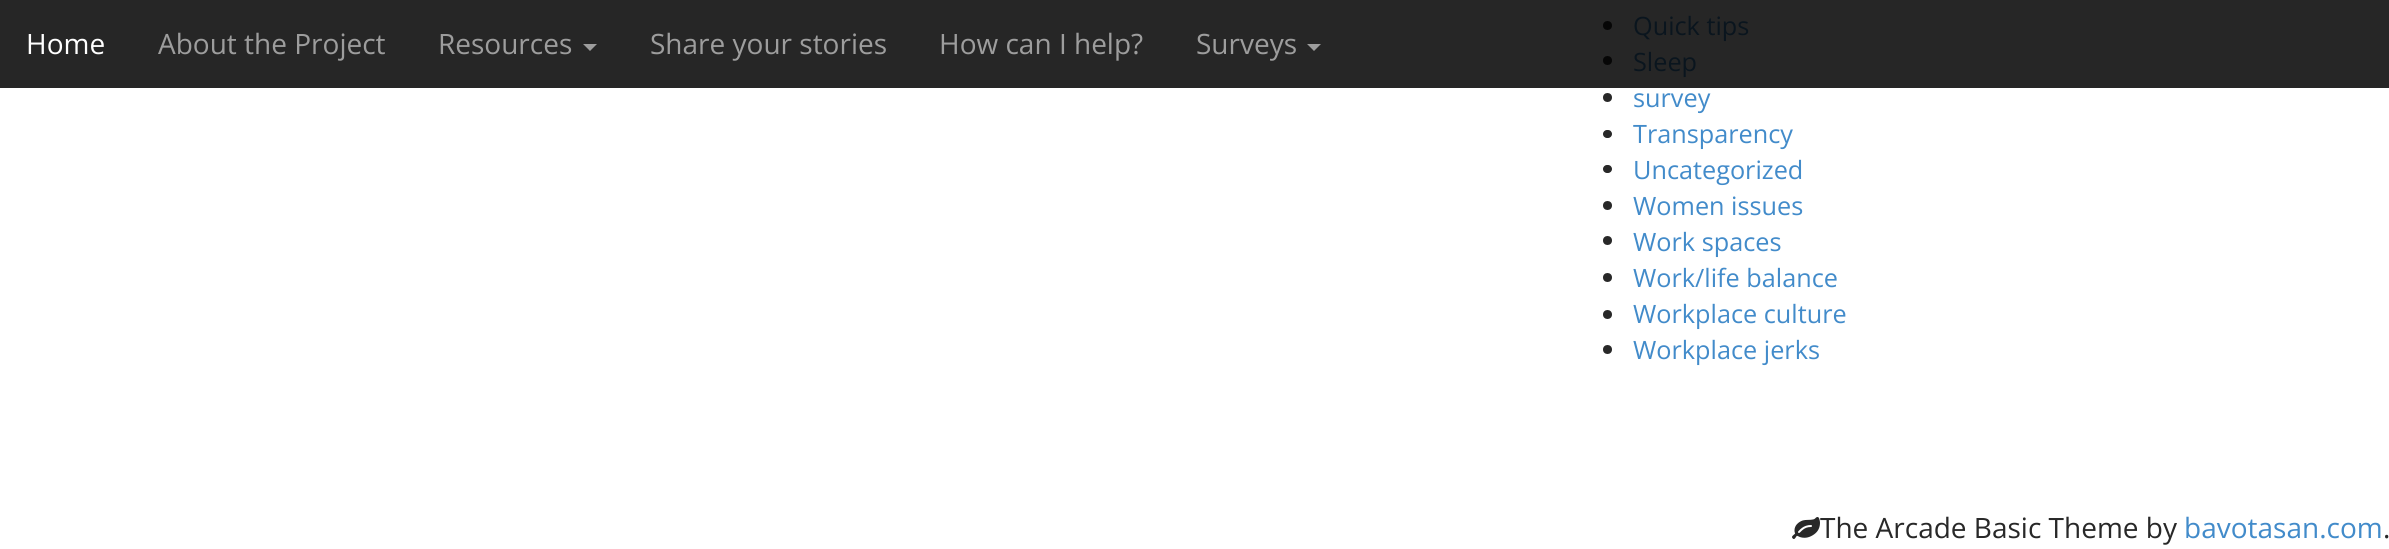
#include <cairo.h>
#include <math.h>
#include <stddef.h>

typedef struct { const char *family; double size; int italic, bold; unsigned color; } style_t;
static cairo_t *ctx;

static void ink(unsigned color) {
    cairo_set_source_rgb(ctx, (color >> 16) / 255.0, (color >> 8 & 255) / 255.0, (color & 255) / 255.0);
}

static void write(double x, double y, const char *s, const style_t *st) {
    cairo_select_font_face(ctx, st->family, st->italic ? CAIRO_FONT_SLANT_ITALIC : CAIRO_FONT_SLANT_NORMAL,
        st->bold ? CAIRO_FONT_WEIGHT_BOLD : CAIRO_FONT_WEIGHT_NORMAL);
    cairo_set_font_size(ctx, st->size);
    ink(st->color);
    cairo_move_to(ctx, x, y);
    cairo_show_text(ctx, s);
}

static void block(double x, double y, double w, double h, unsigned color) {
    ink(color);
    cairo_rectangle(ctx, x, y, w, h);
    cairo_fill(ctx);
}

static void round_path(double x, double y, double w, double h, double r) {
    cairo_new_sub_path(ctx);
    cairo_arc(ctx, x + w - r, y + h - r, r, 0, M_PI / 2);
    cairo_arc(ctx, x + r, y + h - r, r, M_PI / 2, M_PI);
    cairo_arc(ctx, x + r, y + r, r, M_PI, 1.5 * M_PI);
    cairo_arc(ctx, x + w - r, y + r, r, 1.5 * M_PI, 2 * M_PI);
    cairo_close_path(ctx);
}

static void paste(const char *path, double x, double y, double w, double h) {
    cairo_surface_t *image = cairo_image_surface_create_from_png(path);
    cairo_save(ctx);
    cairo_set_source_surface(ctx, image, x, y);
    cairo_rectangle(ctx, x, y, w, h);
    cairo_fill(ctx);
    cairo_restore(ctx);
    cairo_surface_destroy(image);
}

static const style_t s1 = {"Open Sans", 28, 0, 0, 0xffffff};
static const style_t s2 = {"Open Sans", 28, 0, 0, 0x9d9d9d};
static const style_t s3 = {"Open Sans", 25.25, 0, 0, 0x0a151e};
static const style_t s4 = {"Open Sans", 25.25, 0, 0, 0x428bca};
static const style_t s5 = {"Open Sans", 28, 0, 0, 0x282828};
static const style_t s6 = {"Open Sans", 28, 0, 0, 0x428bca};

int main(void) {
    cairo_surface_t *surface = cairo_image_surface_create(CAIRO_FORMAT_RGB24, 2389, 549);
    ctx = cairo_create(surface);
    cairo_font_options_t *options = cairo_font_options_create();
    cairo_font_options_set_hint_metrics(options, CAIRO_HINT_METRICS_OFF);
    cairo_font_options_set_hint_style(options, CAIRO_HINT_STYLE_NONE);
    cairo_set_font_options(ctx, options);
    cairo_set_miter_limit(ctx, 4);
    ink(0xffffff);
    cairo_paint(ctx);
    block(0, 0, 2389, 88, 0x262626);
    write(26, 54, "Home", &s1);
    write(158, 54, "About the Project", &s2);
    write(438, 54, "Resources", &s2);
    cairo_new_path(ctx);
    cairo_move_to(ctx, 583, 44);
    cairo_line_to(ctx, 597, 44);
    cairo_line_to(ctx, 590, 51);
    cairo_close_path(ctx);
    cairo_fill(ctx);
    write(650, 54, "Share your stories", &s2);
    write(939, 54, "How can I help?", &s2);
    write(1196, 54, "Surveys", &s2);
    cairo_new_path(ctx);
    cairo_move_to(ctx, 1307, 44);
    cairo_line_to(ctx, 1321, 44);
    cairo_line_to(ctx, 1314, 51);
    cairo_close_path(ctx);
    cairo_fill(ctx);
    ink(0x060606);
    cairo_arc(ctx, 1607.5, 25.5, 4.5, 0, 2 * M_PI);
    cairo_fill(ctx);
    write(1633, 35, "Quick tips", &s3);
    ink(0x060606);
    cairo_new_path(ctx);
    cairo_arc(ctx, 1607.5, 60.5, 4.5, 0, 2 * M_PI);
    cairo_fill(ctx);
    write(1633, 71, "Sleep", &s3);
    ink(0x282828);
    cairo_new_path(ctx);
    cairo_arc(ctx, 1607.5, 97.5, 4.5, 0, 2 * M_PI);
    cairo_fill(ctx);
    write(1633, 107, "survey", &s4);
    ink(0x282828);
    round_path(1603, 130, 9, 8, 4);
    cairo_fill(ctx);
    write(1633, 143, "Transparency", &s4);
    ink(0x282828);
    round_path(1603, 165, 9, 8, 4);
    cairo_fill(ctx);
    write(1633, 179, "Uncategorized", &s4);
    ink(0x282828);
    cairo_new_path(ctx);
    cairo_arc(ctx, 1607.5, 205.5, 4.5, 0, 2 * M_PI);
    cairo_fill(ctx);
    write(1633, 215, "Women issues", &s4);
    ink(0x282828);
    cairo_new_path(ctx);
    cairo_arc(ctx, 1607.5, 240.5, 4.5, 0, 2 * M_PI);
    cairo_fill(ctx);
    write(1633, 251, "Work spaces", &s4);
    ink(0x282828);
    cairo_new_path(ctx);
    cairo_arc(ctx, 1607.5, 277.5, 4.5, 0, 2 * M_PI);
    cairo_fill(ctx);
    write(1633, 287, "Work/life balance", &s4);
    ink(0x282828);
    cairo_new_path(ctx);
    cairo_arc(ctx, 1607.5, 314.5, 4.5, 0, 2 * M_PI);
    cairo_fill(ctx);
    write(1633, 323, "Workplace culture", &s4);
    ink(0x282828);
    cairo_new_path(ctx);
    cairo_arc(ctx, 1607.5, 349.5, 4.5, 0, 2 * M_PI);
    cairo_fill(ctx);
    write(1633, 359, "Workplace jerks", &s4);
    paste("pic1.png", 1792, 517, 28, 22);
    write(1820, 538, "The Arcade Basic Theme by", &s5);
    write(2184, 538, "bavotasan.com", &s6);
    write(2383, 538, ".", &s5);
    cairo_surface_write_to_png(surface, "screenshot.png");
    cairo_font_options_destroy(options);
    cairo_destroy(ctx);
    cairo_surface_destroy(surface);
    return 0;
}
